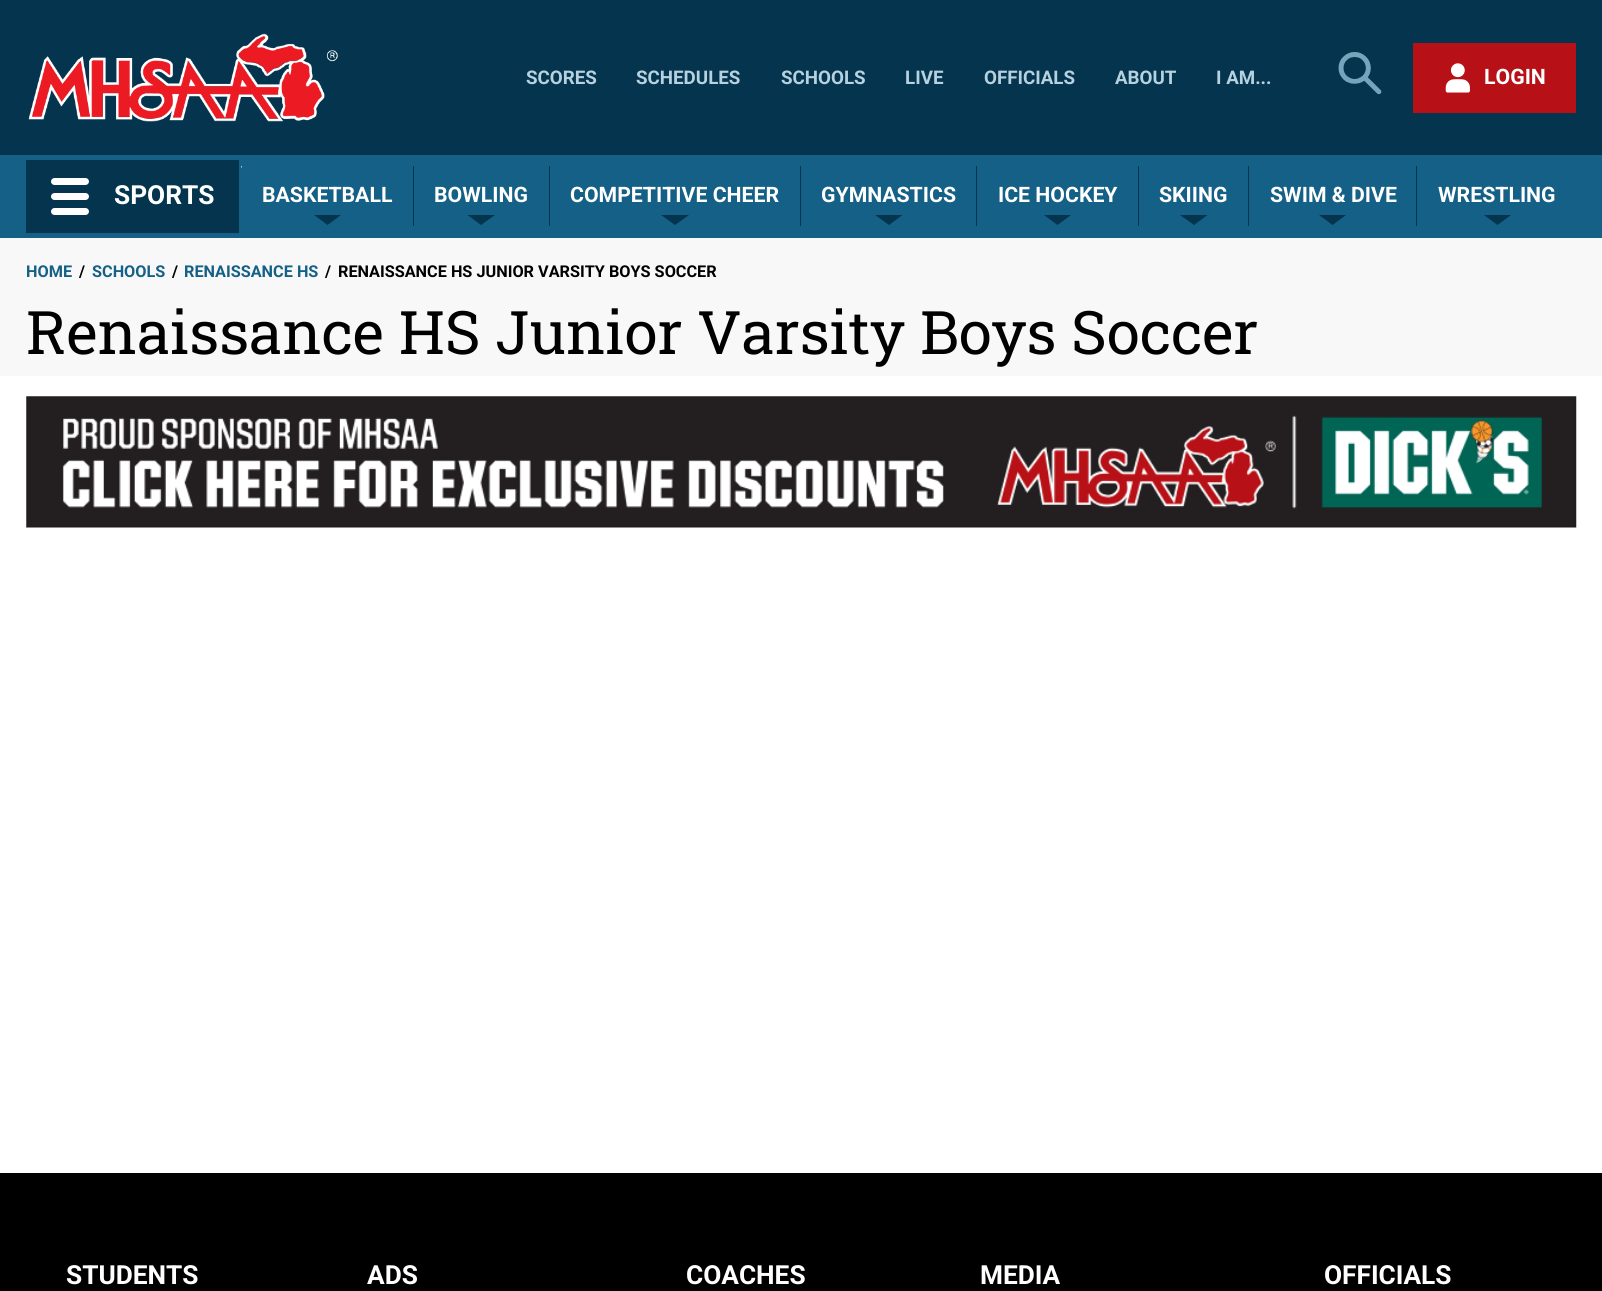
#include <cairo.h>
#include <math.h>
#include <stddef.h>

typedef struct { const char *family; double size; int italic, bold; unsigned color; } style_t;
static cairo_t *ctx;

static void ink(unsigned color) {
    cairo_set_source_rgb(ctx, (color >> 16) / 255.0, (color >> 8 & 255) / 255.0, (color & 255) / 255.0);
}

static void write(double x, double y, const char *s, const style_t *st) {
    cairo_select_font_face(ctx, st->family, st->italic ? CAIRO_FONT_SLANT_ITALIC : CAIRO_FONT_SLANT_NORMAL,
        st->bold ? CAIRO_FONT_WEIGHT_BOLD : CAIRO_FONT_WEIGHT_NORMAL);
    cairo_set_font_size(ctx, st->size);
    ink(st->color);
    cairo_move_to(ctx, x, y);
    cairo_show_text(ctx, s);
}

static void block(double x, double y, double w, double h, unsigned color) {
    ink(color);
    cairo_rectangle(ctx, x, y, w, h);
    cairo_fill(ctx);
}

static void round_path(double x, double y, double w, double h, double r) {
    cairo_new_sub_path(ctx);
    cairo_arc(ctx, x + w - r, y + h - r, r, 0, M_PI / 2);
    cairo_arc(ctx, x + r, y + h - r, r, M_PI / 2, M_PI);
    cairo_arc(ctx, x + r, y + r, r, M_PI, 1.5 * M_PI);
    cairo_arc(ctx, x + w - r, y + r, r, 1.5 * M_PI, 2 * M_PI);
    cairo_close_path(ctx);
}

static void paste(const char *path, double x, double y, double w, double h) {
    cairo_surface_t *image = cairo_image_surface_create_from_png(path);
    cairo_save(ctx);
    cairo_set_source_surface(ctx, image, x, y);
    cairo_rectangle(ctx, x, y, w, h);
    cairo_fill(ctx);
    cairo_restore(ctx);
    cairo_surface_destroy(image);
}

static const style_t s1 = {"Roboto", 18.75, 0, 1, 0xb6d2e0};
static const style_t s2 = {"Roboto", 21.25, 0, 1, 0xffffff};
static const style_t s3 = {"Roboto", 26.25, 0, 1, 0xffffff};
static const style_t s4 = {"Roboto", 16.25, 0, 1, 0x156086};
static const style_t s5 = {"Roboto", 16.25, 0, 1, 0x000000};
static const style_t s6 = {"Roboto Slab", 60, 0, 0, 0x000000};

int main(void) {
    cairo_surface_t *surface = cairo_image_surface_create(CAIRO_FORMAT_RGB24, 1602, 1291);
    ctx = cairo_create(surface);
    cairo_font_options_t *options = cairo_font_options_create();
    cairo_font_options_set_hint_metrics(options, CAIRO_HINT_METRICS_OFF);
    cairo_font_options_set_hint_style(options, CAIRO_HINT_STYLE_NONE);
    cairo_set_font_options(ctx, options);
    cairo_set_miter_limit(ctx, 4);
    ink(0xffffff);
    cairo_paint(ctx);
    block(0, 0, 1602, 155, 0x05354e);
    paste("pic1.png", 28, 33, 310, 89);
    write(526, 84, "SCORES", &s1);
    write(636, 84, "SCHEDULES", &s1);
    write(781, 84, "SCHOOLS", &s1);
    write(905, 84, "LIVE", &s1);
    write(984, 84, "OFFICIALS", &s1);
    write(1115, 84, "ABOUT", &s1);
    write(1216, 84, "I AM...", &s1);
    paste("pic2.png", 1338, 52, 44, 42);
    block(1413, 43, 163, 70, 0xb71117);
    paste("pic3.png", 1445, 63, 25, 30);
    write(1484, 84, "LOGIN", &s2);
    block(0, 155, 1602, 83, 0x156086);
    block(26, 160, 213, 73, 0x05354e);
    ink(0xffffff);
    round_path(51, 178, 38, 7, 3.5);
    cairo_fill(ctx);
    round_path(51, 193, 38, 7, 3.5);
    cairo_fill(ctx);
    round_path(51, 208, 38, 7, 3.5);
    cairo_fill(ctx);
    write(114, 204, "SPORTS", &s3);
    block(413, 166, 1, 60, 0x05354e);
    cairo_save(ctx);
    cairo_rectangle(ctx, 241, 166, 172, 60);
    cairo_clip(ctx);
    ink(0xb6d2e0);
    cairo_new_path(ctx);
    cairo_move_to(ctx, -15, 166);
    cairo_line_to(ctx, -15, 226);
    cairo_line_to(ctx, 216, 226);
    cairo_line_to(ctx, 242, 166);
    cairo_close_path(ctx);
    cairo_fill(ctx);
    cairo_new_path(ctx);
    cairo_move_to(ctx, -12, 169);
    cairo_line_to(ctx, 240, 169);
    cairo_line_to(ctx, 240, 170);
    cairo_line_to(ctx, 242, 166);
    cairo_line_to(ctx, -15, 166);
    cairo_line_to(ctx, -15, 226);
    cairo_line_to(ctx, 216, 226);
    cairo_line_to(ctx, 217, 223);
    cairo_line_to(ctx, -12, 223);
    cairo_close_path(ctx);
    cairo_fill(ctx);
    cairo_restore(ctx);
    write(262, 202, "BASKETBALL", &s2);
    ink(0x05354e);
    cairo_new_path(ctx);
    cairo_move_to(ctx, 314, 215);
    cairo_line_to(ctx, 341, 215);
    cairo_line_to(ctx, 327.5, 225);
    cairo_close_path(ctx);
    cairo_fill(ctx);
    block(549, 166, 1, 60, 0x05354e);
    write(434, 202, "BOWLING", &s2);
    ink(0x05354e);
    cairo_new_path(ctx);
    cairo_move_to(ctx, 467.5, 215);
    cairo_line_to(ctx, 495, 215);
    cairo_line_to(ctx, 481, 225);
    cairo_close_path(ctx);
    cairo_fill(ctx);
    block(800, 166, 1, 60, 0x05354e);
    write(570, 202, "COMPETITIVE CHEER", &s2);
    ink(0x05354e);
    cairo_new_path(ctx);
    cairo_move_to(ctx, 661, 215);
    cairo_line_to(ctx, 689, 215);
    cairo_line_to(ctx, 675, 225);
    cairo_close_path(ctx);
    cairo_fill(ctx);
    block(976, 166, 1, 60, 0x05354e);
    write(821, 202, "GYMNASTICS", &s2);
    ink(0x05354e);
    cairo_new_path(ctx);
    cairo_move_to(ctx, 875, 215);
    cairo_line_to(ctx, 902.5, 215);
    cairo_line_to(ctx, 889, 225);
    cairo_close_path(ctx);
    cairo_fill(ctx);
    block(1138, 166, 1, 60, 0x05354e);
    write(998, 202, "ICE HOCKEY", &s2);
    ink(0x05354e);
    cairo_new_path(ctx);
    cairo_move_to(ctx, 1044, 215);
    cairo_line_to(ctx, 1071, 215);
    cairo_line_to(ctx, 1057.5, 225);
    cairo_close_path(ctx);
    cairo_fill(ctx);
    block(1248, 166, 1, 60, 0x05354e);
    write(1159, 202, "SKIING", &s2);
    ink(0x05354e);
    cairo_new_path(ctx);
    cairo_move_to(ctx, 1180, 215);
    cairo_line_to(ctx, 1207.5, 215);
    cairo_line_to(ctx, 1194, 225);
    cairo_close_path(ctx);
    cairo_fill(ctx);
    block(1416, 166, 1, 60, 0x05354e);
    write(1270, 202, "SWIM & DIVE", &s2);
    ink(0x05354e);
    cairo_new_path(ctx);
    cairo_move_to(ctx, 1319, 215);
    cairo_line_to(ctx, 1346, 215);
    cairo_line_to(ctx, 1332.5, 225);
    cairo_close_path(ctx);
    cairo_fill(ctx);
    write(1438, 202, "WRESTLING", &s2);
    ink(0x05354e);
    cairo_new_path(ctx);
    cairo_move_to(ctx, 1484, 215);
    cairo_line_to(ctx, 1511, 215);
    cairo_line_to(ctx, 1497.5, 225);
    cairo_close_path(ctx);
    cairo_fill(ctx);
    block(0, 238, 1602, 138, 0xf8f8f8);
    write(26, 277, "HOME", &s4);
    write(79, 277, "/", &s5);
    write(92, 277, "SCHOOLS", &s4);
    write(172, 277, "/", &s5);
    write(184, 277, "RENAISSANCE HS", &s4);
    write(325, 277, "/", &s5);
    write(338, 277, "RENAISSANCE HS JUNIOR VARSITY BOYS SOCCER", &s5);
    write(26, 354, "Renaissance HS Junior Varsity Boys Soccer", &s6);
    paste("pic4.png", 26, 396, 1551, 132);
    block(0, 1173, 1602, 118, 0x000000);
    write(66, 1284, "STUDENTS", &s3);
    write(367, 1284, "ADS", &s3);
    write(686, 1284, "COACHES", &s3);
    write(980, 1284, "MEDIA", &s3);
    write(1324, 1284, "OFFICIALS", &s3);
    cairo_surface_write_to_png(surface, "screenshot.png");
    cairo_font_options_destroy(options);
    cairo_destroy(ctx);
    cairo_surface_destroy(surface);
    return 0;
}
